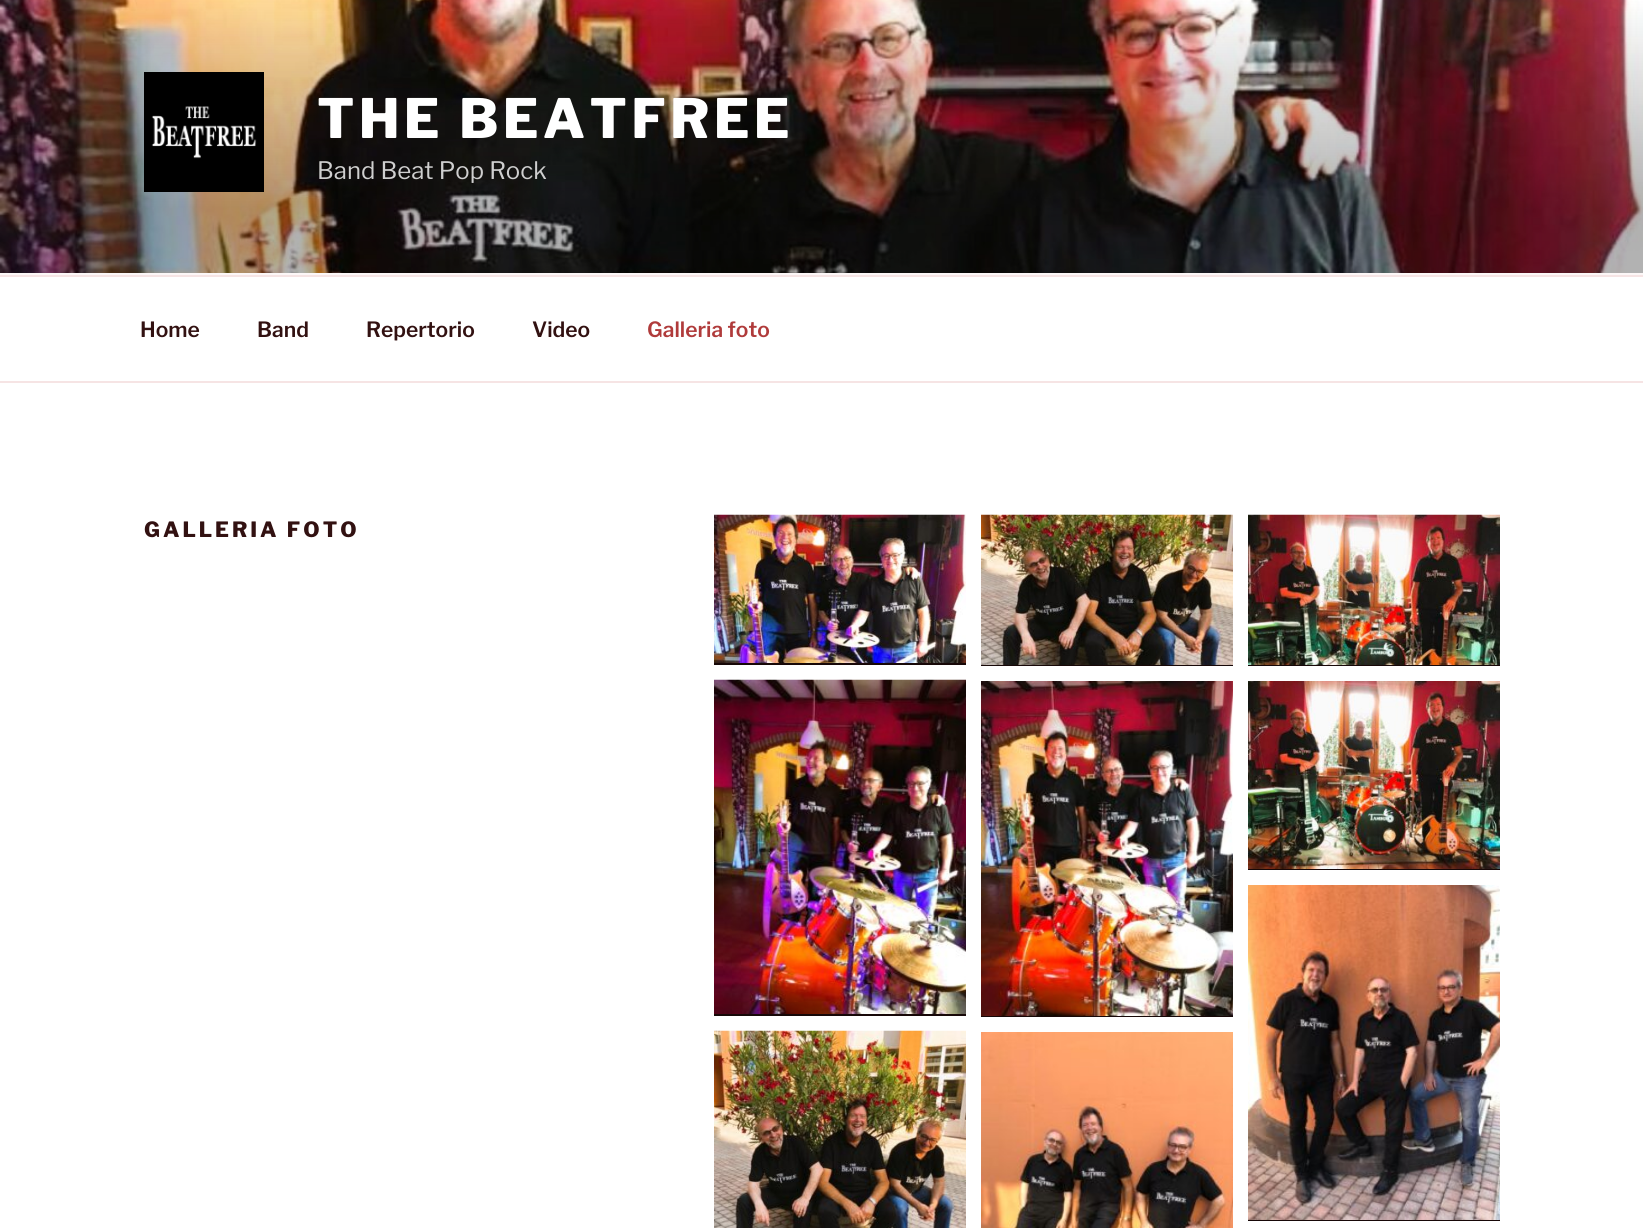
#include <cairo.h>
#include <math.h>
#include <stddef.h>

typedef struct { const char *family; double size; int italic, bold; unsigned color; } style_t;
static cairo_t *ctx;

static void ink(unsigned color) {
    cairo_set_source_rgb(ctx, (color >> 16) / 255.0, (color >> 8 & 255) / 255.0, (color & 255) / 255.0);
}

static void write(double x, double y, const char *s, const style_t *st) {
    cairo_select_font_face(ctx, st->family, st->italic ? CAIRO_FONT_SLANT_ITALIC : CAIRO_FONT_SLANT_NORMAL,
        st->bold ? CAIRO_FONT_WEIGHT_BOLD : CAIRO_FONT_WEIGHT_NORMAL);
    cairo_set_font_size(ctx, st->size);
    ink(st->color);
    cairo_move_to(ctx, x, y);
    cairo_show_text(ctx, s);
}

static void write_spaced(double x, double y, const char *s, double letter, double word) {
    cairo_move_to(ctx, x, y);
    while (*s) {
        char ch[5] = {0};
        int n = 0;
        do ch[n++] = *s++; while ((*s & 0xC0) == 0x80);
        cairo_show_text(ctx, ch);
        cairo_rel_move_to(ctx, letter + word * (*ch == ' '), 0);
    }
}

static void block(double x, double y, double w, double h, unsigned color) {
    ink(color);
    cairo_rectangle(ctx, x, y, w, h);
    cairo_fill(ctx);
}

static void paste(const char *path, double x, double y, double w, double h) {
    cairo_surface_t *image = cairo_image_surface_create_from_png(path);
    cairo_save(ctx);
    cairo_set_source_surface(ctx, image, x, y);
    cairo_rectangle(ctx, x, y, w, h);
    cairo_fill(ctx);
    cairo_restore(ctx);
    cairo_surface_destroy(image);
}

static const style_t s1 = {"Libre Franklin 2 Thin", 24, 0, 0, 0xcfcfcf};
static const style_t s2 = {"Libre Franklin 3 Thin", 21, 0, 0, 0x321111};
static const style_t s3 = {"Libre Franklin 3 Thin", 21, 0, 0, 0xb03b3b};

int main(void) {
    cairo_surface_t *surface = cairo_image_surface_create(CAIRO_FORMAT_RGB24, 1643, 1228);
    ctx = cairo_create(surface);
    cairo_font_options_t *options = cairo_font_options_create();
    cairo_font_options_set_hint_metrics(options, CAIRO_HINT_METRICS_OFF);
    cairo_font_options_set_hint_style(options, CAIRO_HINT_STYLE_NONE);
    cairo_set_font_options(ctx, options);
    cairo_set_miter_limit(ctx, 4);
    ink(0xffffff);
    cairo_paint(ctx);
    block(0, 273, 1643, 2, 0xfcf7f7);
    paste("pic1.png", 0, 0, 1643, 273);
    paste("pic2.png", 144, 72, 120, 120);
    cairo_select_font_face(ctx, "Libre Franklin Thin", CAIRO_FONT_SLANT_NORMAL, CAIRO_FONT_WEIGHT_NORMAL);
    cairo_set_font_size(ctx, 54);
    ink(0xffffff);
    write_spaced(317, 138, "THE BEATFREE", 4.25, 0);
    write(317, 179, "Band Beat Pop Rock", &s1);
    block(0, 275, 1643, 2, 0xf6e4e4);
    block(0, 381, 1643, 2, 0xf6e4e4);
    write(140, 337, "Home", &s2);
    write(257, 337, "Band", &s2);
    write(366, 337, "Repertorio", &s2);
    write(532, 337, "Video", &s2);
    write(647, 337, "Galleria foto", &s3);
    cairo_select_font_face(ctx, "Libre Franklin Thin", CAIRO_FONT_SLANT_NORMAL, CAIRO_FONT_WEIGHT_NORMAL);
    ink(0x321111);
    write_spaced(144, 537, "GALLERIA FOTO", 3, 0);
    paste("pic3.png", 714, 514, 252, 149);
    block(714, 663, 252, 2, 0x170808);
    paste("pic4.png", 981, 514, 252, 151);
    block(981, 665, 252, 1, 0x170808);
    paste("pic5.png", 1248, 514, 252, 151);
    block(1248, 665, 252, 1, 0x170808);
    paste("pic6.png", 714, 679, 252, 335);
    block(714, 1014, 252, 2, 0x170808);
    paste("pic7.png", 981, 681, 252, 335);
    block(981, 1016, 252, 1, 0x170808);
    paste("pic8.png", 1248, 681, 252, 188);
    block(1248, 869, 252, 1, 0x170808);
    paste("pic9.png", 714, 1030, 252, 198);
    paste("pic10.png", 981, 1032, 252, 196);
    paste("pic11.png", 1248, 885, 252, 335);
    block(1248, 1220, 252, 1, 0x170808);
    cairo_surface_write_to_png(surface, "screenshot.png");
    cairo_font_options_destroy(options);
    cairo_destroy(ctx);
    cairo_surface_destroy(surface);
    return 0;
}
